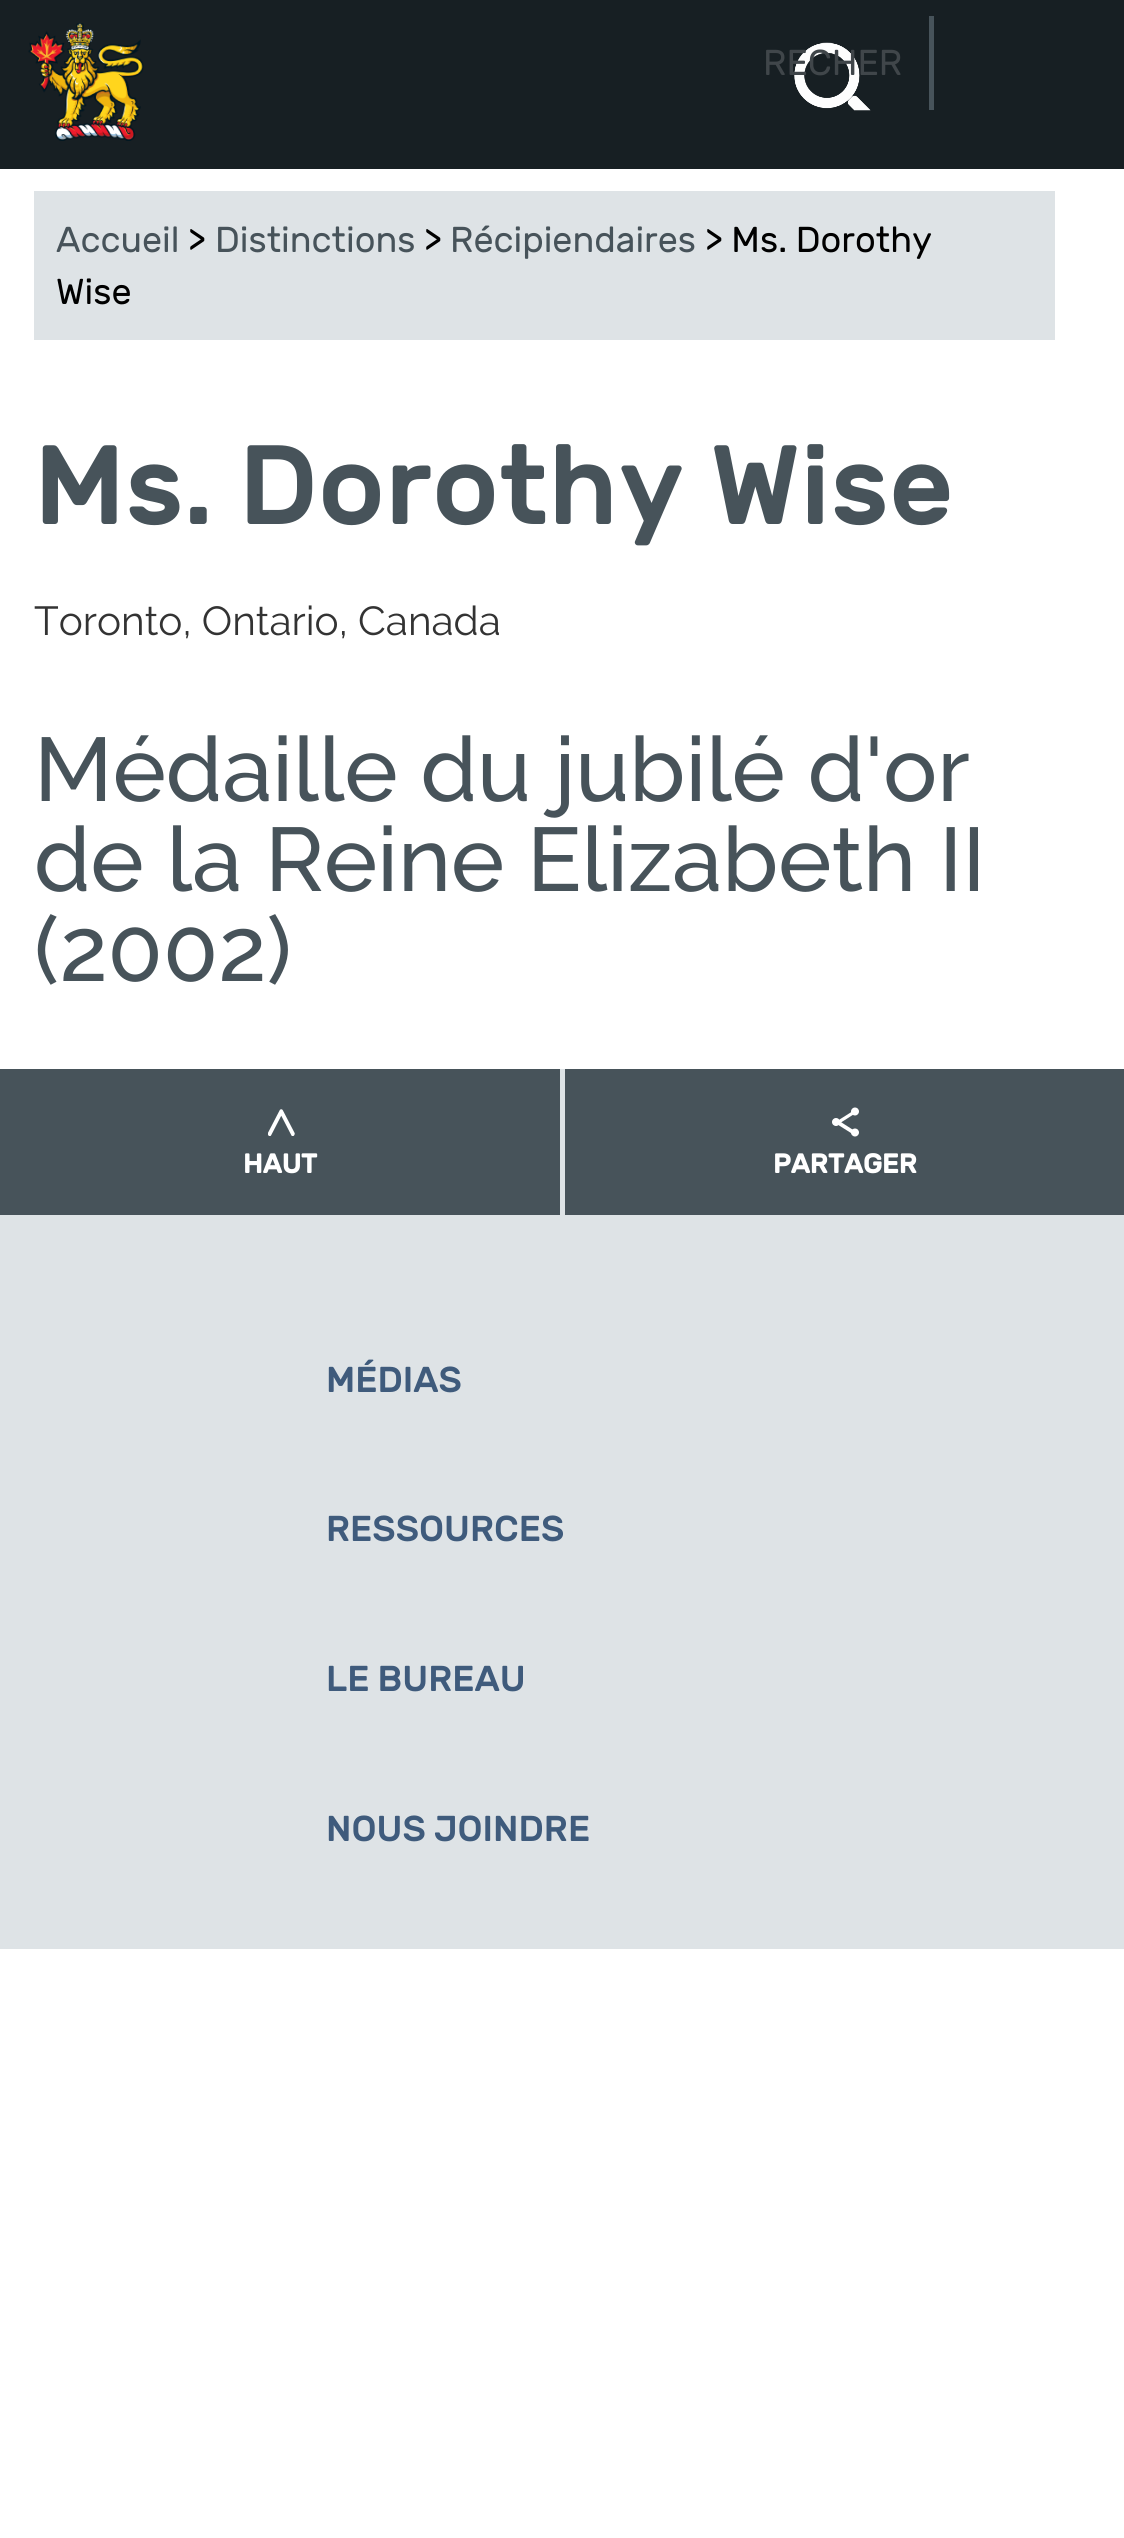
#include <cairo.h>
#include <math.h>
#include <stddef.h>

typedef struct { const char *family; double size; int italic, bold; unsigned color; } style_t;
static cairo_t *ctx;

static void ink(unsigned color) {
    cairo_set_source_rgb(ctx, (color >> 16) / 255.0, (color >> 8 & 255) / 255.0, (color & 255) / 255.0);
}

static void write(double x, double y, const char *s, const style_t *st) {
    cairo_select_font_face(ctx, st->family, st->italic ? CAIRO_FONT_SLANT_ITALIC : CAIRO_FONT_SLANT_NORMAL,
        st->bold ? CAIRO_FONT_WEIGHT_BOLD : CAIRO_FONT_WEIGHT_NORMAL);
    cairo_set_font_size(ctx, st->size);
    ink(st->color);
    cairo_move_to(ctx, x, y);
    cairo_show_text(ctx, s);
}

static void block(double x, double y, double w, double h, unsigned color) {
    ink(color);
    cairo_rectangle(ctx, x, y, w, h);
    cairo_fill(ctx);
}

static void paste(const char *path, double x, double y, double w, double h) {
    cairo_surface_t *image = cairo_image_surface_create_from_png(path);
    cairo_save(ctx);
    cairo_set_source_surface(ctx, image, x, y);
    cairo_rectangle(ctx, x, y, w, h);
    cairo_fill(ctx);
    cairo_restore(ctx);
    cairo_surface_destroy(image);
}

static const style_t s1 = {"Rubik", 36, 0, 0, 0x40464a};
static const style_t s2 = {"Rubik", 36, 0, 0, 0x47535a};
static const style_t s3 = {"Rubik", 36, 0, 0, 0x000000};
static const style_t s4 = {"Rubik Medium", 112.5, 0, 0, 0x47535a};
static const style_t s5 = {"Raleway", 40.5, 0, 0, 0x333333};
static const style_t s6 = {"Raleway Medium", 90, 0, 0, 0x47535a};
static const style_t s7 = {"Rubik", 27, 0, 1, 0xffffff};
static const style_t s8 = {"Rubik Medium", 36, 0, 0, 0x3f5b7c};

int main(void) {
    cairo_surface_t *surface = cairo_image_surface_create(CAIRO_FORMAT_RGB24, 1124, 2538);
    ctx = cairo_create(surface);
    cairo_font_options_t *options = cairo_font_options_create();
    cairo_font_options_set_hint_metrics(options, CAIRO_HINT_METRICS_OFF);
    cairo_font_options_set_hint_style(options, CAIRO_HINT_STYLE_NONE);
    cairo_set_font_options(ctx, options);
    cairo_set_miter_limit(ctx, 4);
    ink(0xffffff);
    cairo_paint(ctx);
    block(0, 0, 1124, 169, 0x171f23);
    paste("pic1.png", 28, 23, 116, 118);
    block(929, 16, 5, 94, 0x47535a);
    paste("pic2.png", 794, 42, 77, 69);
    write(763, 75, "RECHER", &s1);
    block(34, 191, 1021, 149, 0xdee3e6);
    write(56, 252, "Accueil", &s2);
    write(188, 252, ">", &s3);
    write(215, 252, "Distinctions", &s2);
    write(424, 252, ">", &s3);
    write(450, 252, "Récipiendaires", &s2);
    write(705, 252, "> Ms. Dorothy", &s3);
    write(56, 304, "Wise", &s3);
    write(34, 524, "Ms. Dorothy Wise", &s4);
    write(34, 635, "Toronto, Ontario, Canada", &s5);
    write(34, 801, "Médaille du jubilé d'or", &s6);
    write(34, 891, "de la Reine Elizabeth II", &s6);
    write(34, 981, "(2002)", &s6);
    block(0, 1069, 1124, 880, 0xdee3e6);
    block(0, 1069, 560, 146, 0x47535a);
    paste("pic3.png", 268, 1109, 27, 27);
    write(243, 1173, "HAUT", &s7);
    block(565, 1069, 559, 146, 0x47535a);
    paste("pic4.png", 832, 1107, 27, 30);
    write(773, 1173, "PARTAGER", &s7);
    write(326, 1392, "MÉDIAS", &s8);
    write(326, 1541, "RESSOURCES", &s8);
    write(326, 1691, "LE BUREAU", &s8);
    write(326, 1841, "NOUS JOINDRE", &s8);
    cairo_surface_write_to_png(surface, "screenshot.png");
    cairo_font_options_destroy(options);
    cairo_destroy(ctx);
    cairo_surface_destroy(surface);
    return 0;
}
